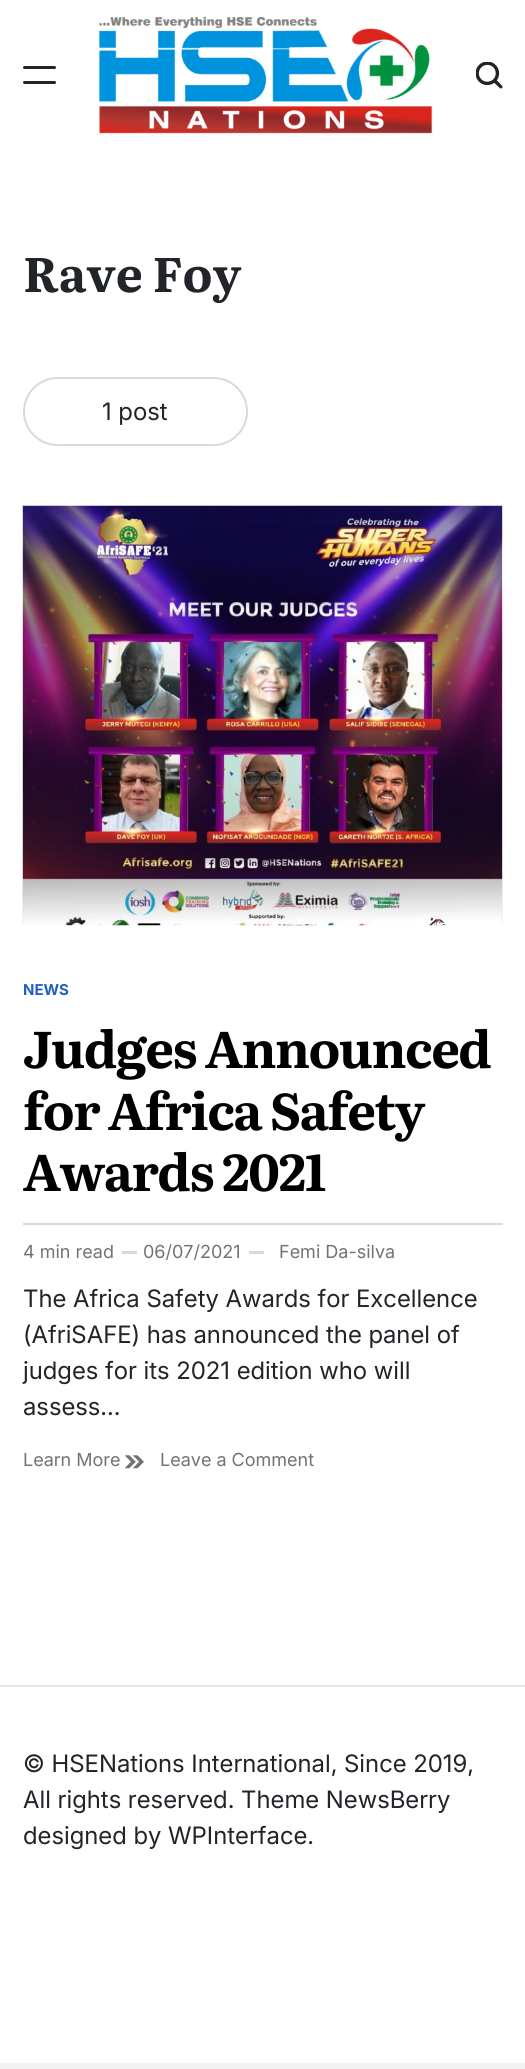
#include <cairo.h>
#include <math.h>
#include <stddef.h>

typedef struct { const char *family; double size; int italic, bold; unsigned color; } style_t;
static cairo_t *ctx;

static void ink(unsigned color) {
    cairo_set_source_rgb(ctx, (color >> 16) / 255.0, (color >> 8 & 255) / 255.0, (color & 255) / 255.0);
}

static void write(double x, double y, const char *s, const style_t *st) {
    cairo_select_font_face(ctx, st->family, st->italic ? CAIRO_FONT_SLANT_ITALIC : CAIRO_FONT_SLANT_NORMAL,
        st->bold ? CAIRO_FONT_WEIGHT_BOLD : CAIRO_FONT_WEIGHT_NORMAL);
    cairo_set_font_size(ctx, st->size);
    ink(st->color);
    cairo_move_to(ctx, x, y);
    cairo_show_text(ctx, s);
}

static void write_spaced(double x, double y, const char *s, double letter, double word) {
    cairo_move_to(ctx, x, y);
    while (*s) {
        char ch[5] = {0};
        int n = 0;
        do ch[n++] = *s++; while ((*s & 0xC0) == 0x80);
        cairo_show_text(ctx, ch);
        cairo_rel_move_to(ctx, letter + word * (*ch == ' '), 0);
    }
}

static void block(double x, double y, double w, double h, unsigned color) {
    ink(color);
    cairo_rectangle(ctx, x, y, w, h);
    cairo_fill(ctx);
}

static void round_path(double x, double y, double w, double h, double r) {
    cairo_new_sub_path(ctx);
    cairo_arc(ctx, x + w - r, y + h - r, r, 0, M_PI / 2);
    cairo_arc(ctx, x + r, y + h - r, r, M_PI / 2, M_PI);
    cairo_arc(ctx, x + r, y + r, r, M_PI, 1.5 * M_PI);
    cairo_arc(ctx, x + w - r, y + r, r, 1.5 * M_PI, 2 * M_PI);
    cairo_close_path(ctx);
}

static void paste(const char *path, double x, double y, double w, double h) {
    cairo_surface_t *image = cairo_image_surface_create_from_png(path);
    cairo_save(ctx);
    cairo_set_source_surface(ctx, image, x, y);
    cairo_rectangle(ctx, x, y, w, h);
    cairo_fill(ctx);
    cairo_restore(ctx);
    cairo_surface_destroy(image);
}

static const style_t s1 = {"Literata", 48, 0, 1, 0x212529};
static const style_t s2 = {"Inter", 24, 0, 0, 0x212529};
static const style_t s3 = {"Inter", 15, 0, 1, 0x2260bf};
static const style_t s4 = {"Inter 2", 18, 0, 0, 0x737373};

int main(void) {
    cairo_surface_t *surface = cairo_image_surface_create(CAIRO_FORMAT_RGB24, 525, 2069);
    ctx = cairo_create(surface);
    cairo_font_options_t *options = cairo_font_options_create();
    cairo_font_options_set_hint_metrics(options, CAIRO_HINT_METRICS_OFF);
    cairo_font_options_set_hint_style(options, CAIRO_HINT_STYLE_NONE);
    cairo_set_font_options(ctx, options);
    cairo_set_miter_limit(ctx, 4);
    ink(0xffffff);
    cairo_paint(ctx);
    ink(0x212529);
    round_path(23, 66, 33, 3, 1.5);
    cairo_fill(ctx);
    round_path(23, 81, 33, 3, 1.5);
    cairo_fill(ctx);
    paste("pic1.png", 98, 16, 335, 118);
    paste("pic2.png", 476, 62, 27, 27);
    write(23, 292, "Rave Foy", &s1);
    round_path(24, 378, 223, 67, 33.5);
    ink(0xd9d9d9);
    cairo_stroke(ctx);
    write(102, 420, "1 post", &s2);
    paste("pic3.png", 22, 505, 481, 421);
    write(23, 995, "NEWS", &s3);
    cairo_select_font_face(ctx, "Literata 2", CAIRO_FONT_SLANT_NORMAL, CAIRO_FONT_WEIGHT_BOLD);
    cairo_set_font_size(ctx, 51);
    ink(0x000000);
    write_spaced(23, 1068, "Judges Announced", -1.5, 0);
    write_spaced(23, 1130, "for Africa Safety", -1.5, 0);
    write_spaced(23, 1191, "Awards 2021", -1.5, 0);
    block(23, 1223, 480, 2, 0xd9d9d9);
    write(23, 1258, "4 min read", &s4);
    block(122, 1251, 15, 3, 0xd9d9d9);
    write(143, 1258, "06/07/2021", &s4);
    block(249, 1251, 15, 3, 0xd9d9d9);
    write(279, 1258, "Femi Da-silva", &s4);
    write(23, 1307, "The Africa Safety Awards for Excellence", &s2);
    write(23, 1343, "(AfriSAFE) has announced the panel of", &s2);
    write(23, 1379, "judges for its 2021 edition who will", &s2);
    write(23, 1415, "assess…", &s2);
    write(23, 1466, "Learn More", &s4);
    paste("pic4.png", 125, 1455, 19, 14);
    write(160, 1466, "Leave a Comment", &s4);
    block(0, 1685, 525, 2, 0xe6e6e6);
    write(23, 1772, "© HSENations International, Since 2019,", &s2);
    write(23, 1808, "All rights reserved. Theme NewsBerry", &s2);
    write(23, 1844, "designed by WPInterface.", &s2);
    block(0, 2063, 525, 6, 0xf3f3f3);
    cairo_surface_write_to_png(surface, "screenshot.png");
    cairo_font_options_destroy(options);
    cairo_destroy(ctx);
    cairo_surface_destroy(surface);
    return 0;
}
